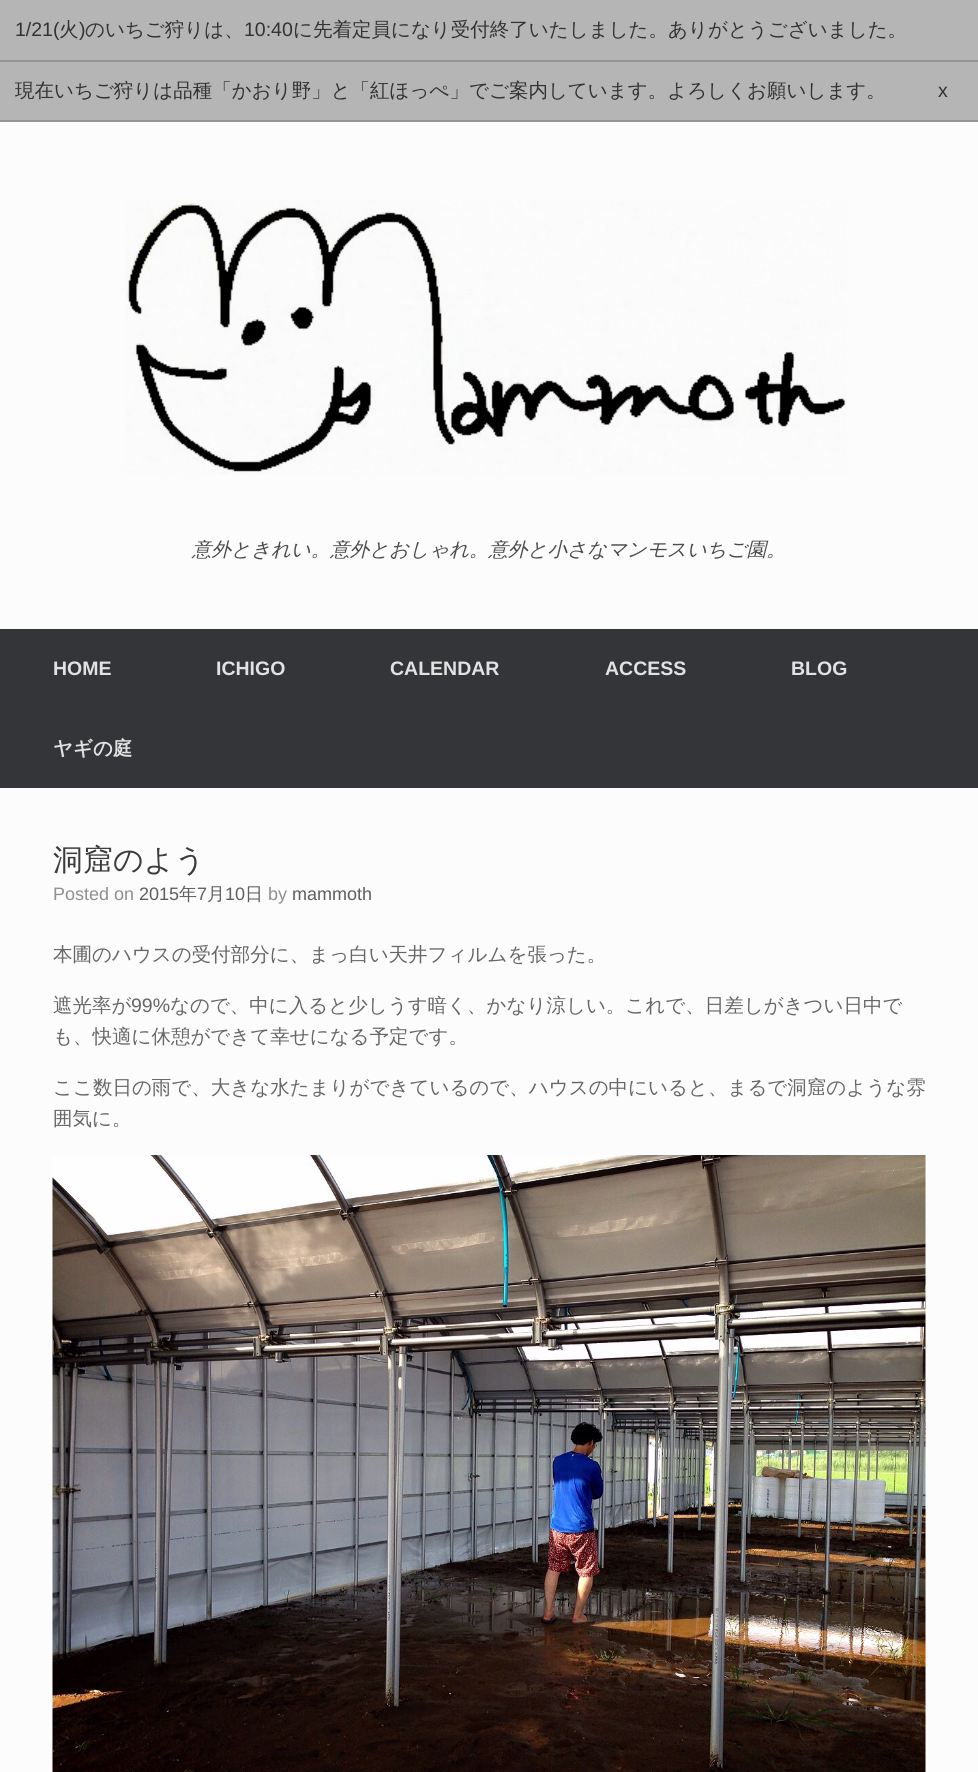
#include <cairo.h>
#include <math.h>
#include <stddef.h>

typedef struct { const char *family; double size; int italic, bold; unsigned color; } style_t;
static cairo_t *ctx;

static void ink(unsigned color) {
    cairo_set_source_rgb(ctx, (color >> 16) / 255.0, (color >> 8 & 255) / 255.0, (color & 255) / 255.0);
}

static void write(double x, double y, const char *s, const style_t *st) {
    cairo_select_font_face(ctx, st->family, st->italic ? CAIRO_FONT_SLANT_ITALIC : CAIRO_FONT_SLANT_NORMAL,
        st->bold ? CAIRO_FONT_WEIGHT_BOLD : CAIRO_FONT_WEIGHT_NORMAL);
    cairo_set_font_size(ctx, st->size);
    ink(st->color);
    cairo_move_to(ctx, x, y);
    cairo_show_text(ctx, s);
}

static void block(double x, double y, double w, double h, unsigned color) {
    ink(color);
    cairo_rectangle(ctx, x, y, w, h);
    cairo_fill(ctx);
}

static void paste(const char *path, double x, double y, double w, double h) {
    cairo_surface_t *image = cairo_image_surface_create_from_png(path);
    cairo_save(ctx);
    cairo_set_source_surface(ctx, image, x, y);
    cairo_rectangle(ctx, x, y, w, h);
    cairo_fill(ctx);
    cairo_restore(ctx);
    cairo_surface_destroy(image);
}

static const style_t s1 = {"Liberation Sans", 19.5, 0, 0, 0x323233};
static const style_t s2 = {"WenQuanYi Zen Hei Medium", 19.5, 0, 0, 0x323233};
static const style_t s3 = {"WenQuanYi Zen Hei Medium", 19.5, 1, 0, 0x4b4b4b};
static const style_t s4 = {"Liberation Sans", 19.5, 0, 1, 0xe2e2e2};
static const style_t s5 = {"WenQuanYi Zen Hei", 19.5, 0, 1, 0xe2e2e2};
static const style_t s6 = {"WenQuanYi Zen Hei Medium", 30, 0, 0, 0x3b3b3b};
static const style_t s7 = {"Liberation Sans", 18, 0, 0, 0x8f8f8f};
static const style_t s8 = {"Liberation Sans", 18, 0, 0, 0x5e5e5e};
static const style_t s9 = {"WenQuanYi Zen Hei Medium", 18, 0, 0, 0x5e5e5e};
static const style_t s10 = {"WenQuanYi Zen Hei Medium", 19.5, 0, 0, 0x666666};
static const style_t s11 = {"Liberation Sans", 19.5, 0, 0, 0x666666};

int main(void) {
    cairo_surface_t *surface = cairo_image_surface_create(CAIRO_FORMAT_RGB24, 978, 1772);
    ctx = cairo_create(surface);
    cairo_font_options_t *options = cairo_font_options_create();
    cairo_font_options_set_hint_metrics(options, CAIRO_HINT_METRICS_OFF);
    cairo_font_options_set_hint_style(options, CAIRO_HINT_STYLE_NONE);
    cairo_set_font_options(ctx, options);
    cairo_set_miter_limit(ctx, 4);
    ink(0xfcfcfc);
    cairo_paint(ctx);
    block(0, 0, 978, 60, 0xb5b5b6);
    block(0, 60, 978, 2, 0x949495);
    write(15, 36, "1/21(", &s1);
    write(59, 36, "火", &s2);
    write(79, 36, ")", &s1);
    write(85, 36, "のいちご狩りは、", &s2);
    write(244, 36, "10:40", &s1);
    write(293, 36, "に先着定員になり受付終了いたしました。ありがとうございました。", &s2);
    block(0, 62, 978, 58, 0xb5b5b6);
    block(0, 120, 978, 2, 0x949495);
    write(15, 97, "現在いちご狩りは品種「かおり野」と「紅ほっぺ」でご案内しています。よろしくお願いします。", &s2);
    write(938, 97, "x", &s1);
    paste("pic1.png", 125, 200, 722, 275);
    write(192, 556, "意外ときれい。意外とおしゃれ。意外と小さなマンモスいちご園。", &s3);
    block(0, 629, 978, 159, 0x343538);
    write(53, 675, "HOME", &s4);
    write(216, 675, "ICHIGO", &s4);
    write(390, 675, "CALENDAR", &s4);
    write(605, 675, "ACCESS", &s4);
    write(791, 675, "BLOG", &s4);
    write(53, 755, "ヤギの庭", &s5);
    write(53, 870, "洞窟のよう", &s6);
    write(53, 900, "Posted on", &s7);
    write(139, 900, "2015", &s8);
    write(179, 900, "年", &s9);
    write(197, 900, "7", &s8);
    write(207, 900, "月", &s9);
    write(225, 900, "10", &s8);
    write(245, 900, "日", &s9);
    write(268, 900, "by", &s7);
    write(292, 900, "mammoth", &s8);
    write(53, 961, "本圃のハウスの受付部分に、まっ白い天井フィルムを張った。", &s10);
    write(53, 1012, "遮光率が", &s10);
    write(131, 1012, "99%", &s11);
    write(170, 1012, "なので、中に入ると少しうす暗く、かなり涼しい。これで、日差しがきつい日中で", &s10);
    write(53, 1043, "も、快適に休憩ができて幸せになる予定です。", &s10);
    write(53, 1094, "ここ数日の雨で、大きな水たまりができているので、ハウスの中にいると、まるで洞窟のような雰", &s10);
    write(53, 1125, "囲気に。", &s10);
    paste("pic2.png", 52, 1155, 874, 617);
    cairo_surface_write_to_png(surface, "screenshot.png");
    cairo_font_options_destroy(options);
    cairo_destroy(ctx);
    cairo_surface_destroy(surface);
    return 0;
}
